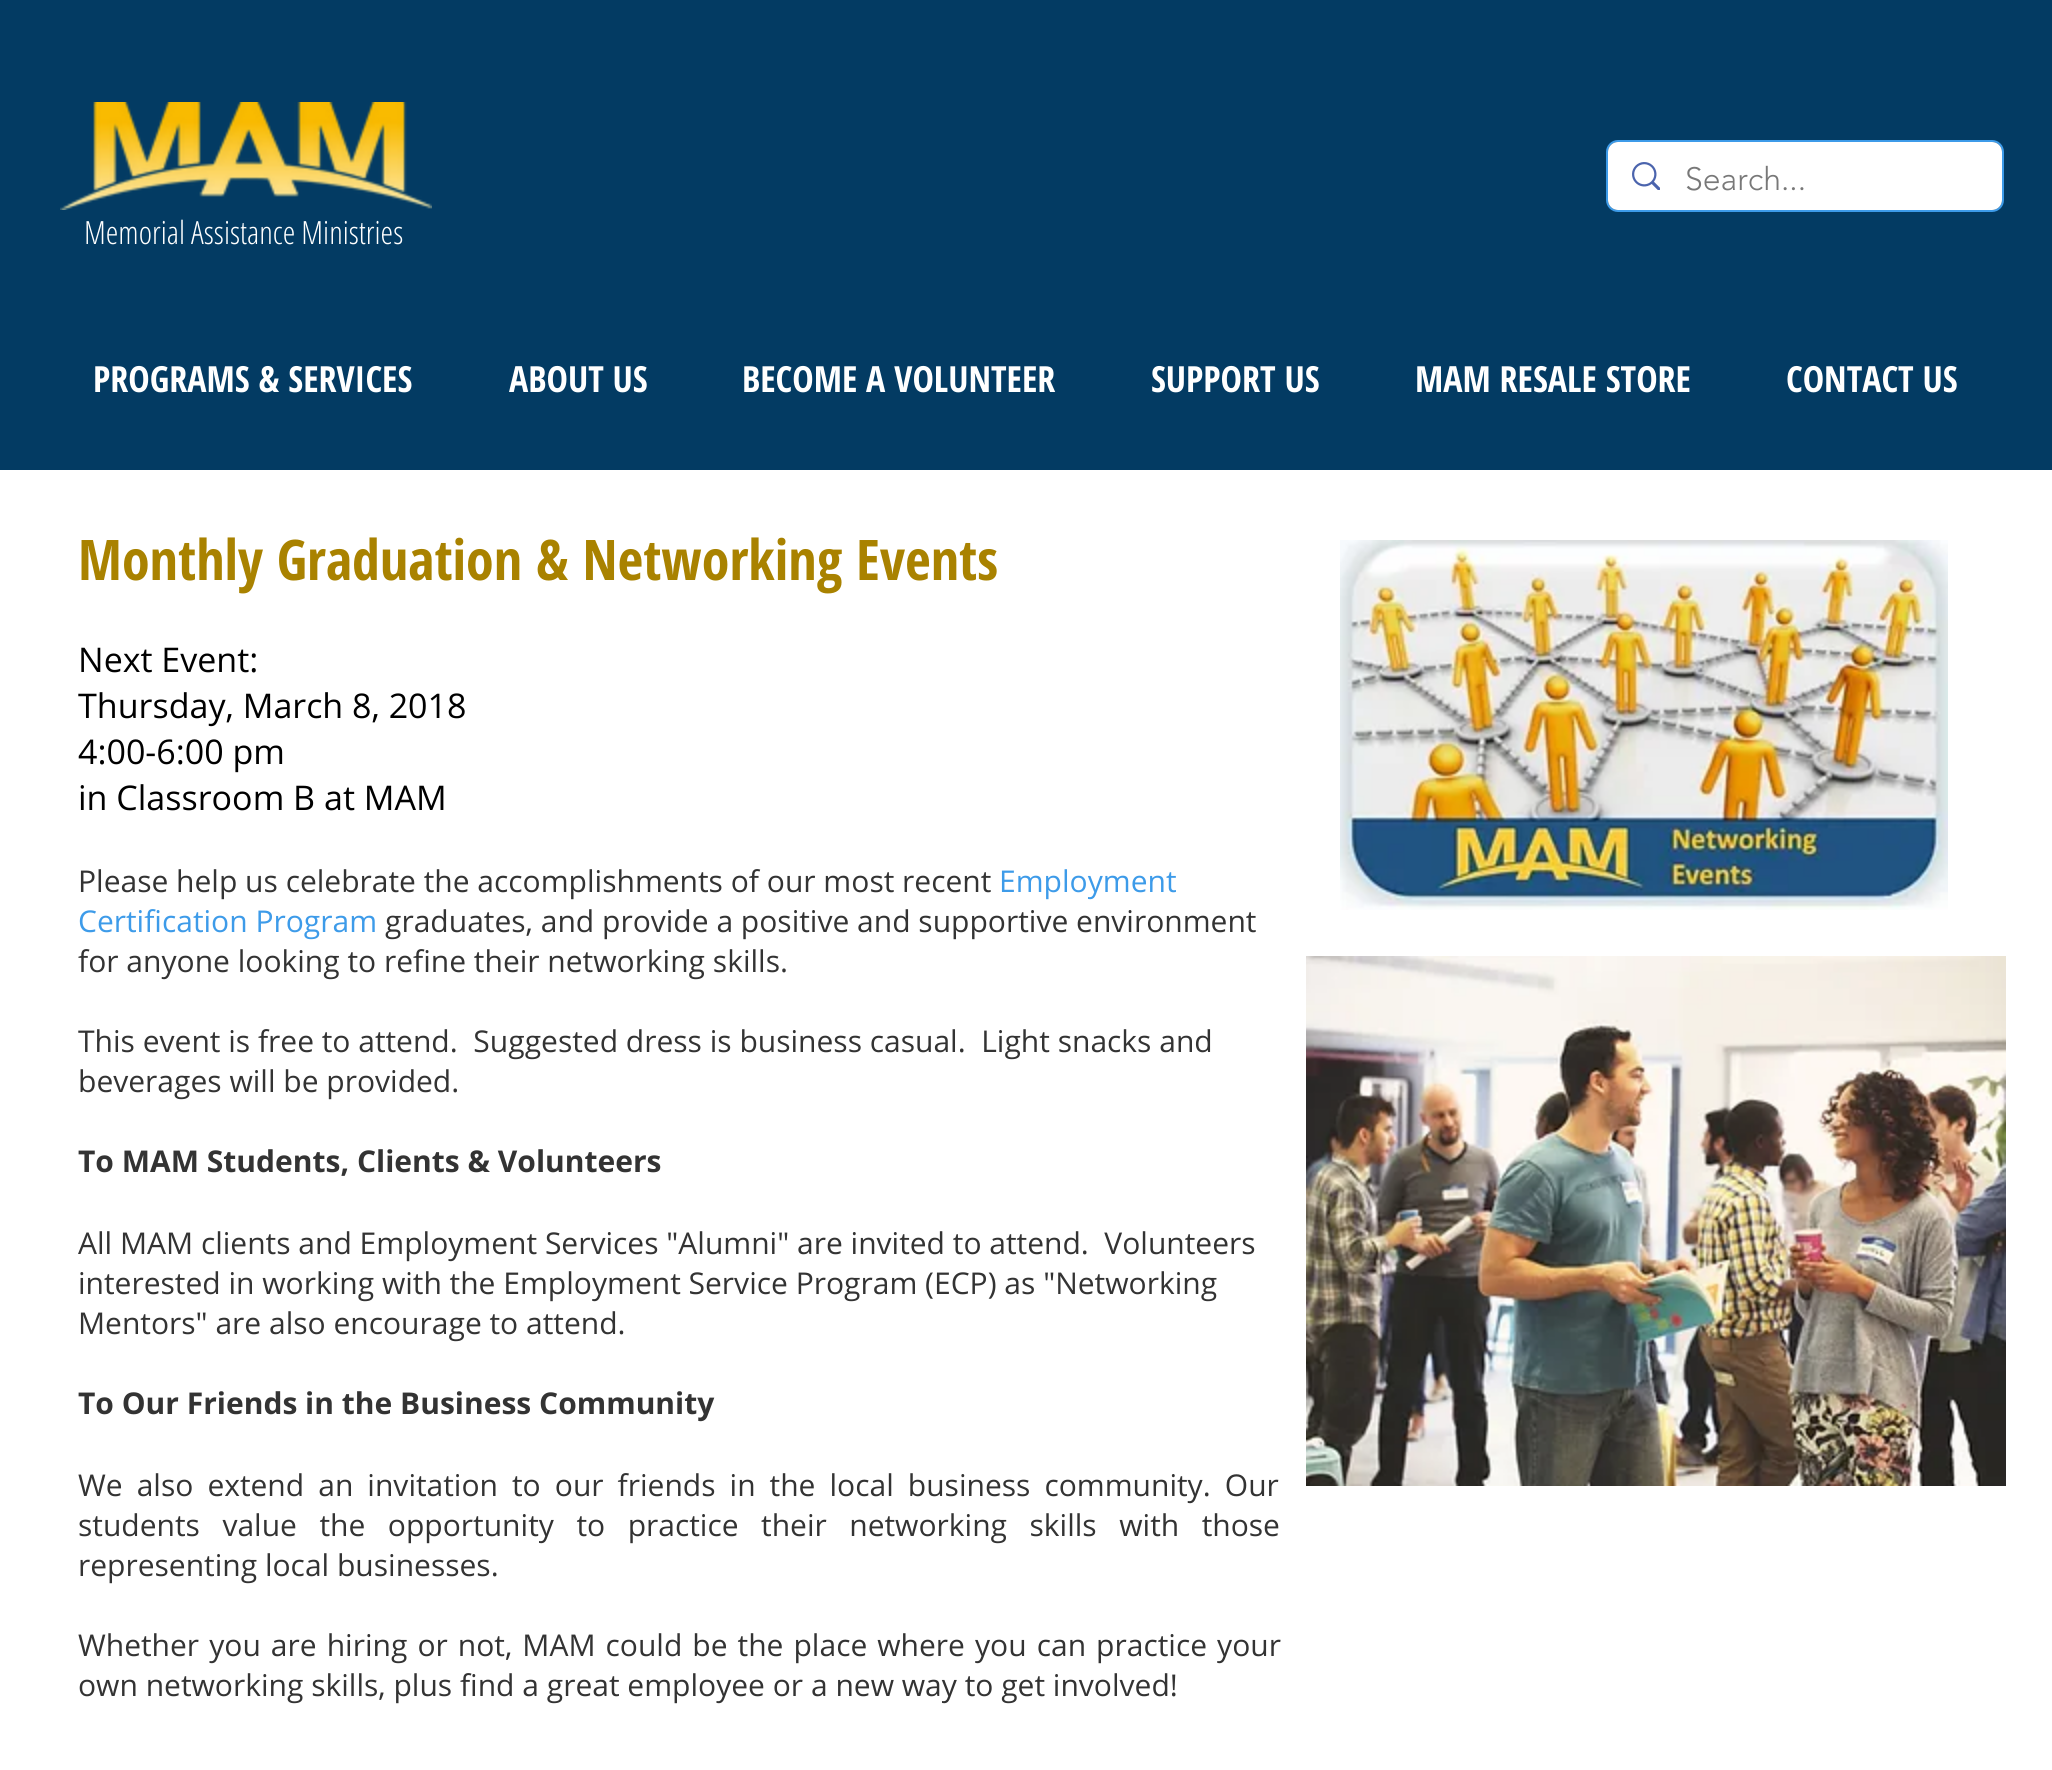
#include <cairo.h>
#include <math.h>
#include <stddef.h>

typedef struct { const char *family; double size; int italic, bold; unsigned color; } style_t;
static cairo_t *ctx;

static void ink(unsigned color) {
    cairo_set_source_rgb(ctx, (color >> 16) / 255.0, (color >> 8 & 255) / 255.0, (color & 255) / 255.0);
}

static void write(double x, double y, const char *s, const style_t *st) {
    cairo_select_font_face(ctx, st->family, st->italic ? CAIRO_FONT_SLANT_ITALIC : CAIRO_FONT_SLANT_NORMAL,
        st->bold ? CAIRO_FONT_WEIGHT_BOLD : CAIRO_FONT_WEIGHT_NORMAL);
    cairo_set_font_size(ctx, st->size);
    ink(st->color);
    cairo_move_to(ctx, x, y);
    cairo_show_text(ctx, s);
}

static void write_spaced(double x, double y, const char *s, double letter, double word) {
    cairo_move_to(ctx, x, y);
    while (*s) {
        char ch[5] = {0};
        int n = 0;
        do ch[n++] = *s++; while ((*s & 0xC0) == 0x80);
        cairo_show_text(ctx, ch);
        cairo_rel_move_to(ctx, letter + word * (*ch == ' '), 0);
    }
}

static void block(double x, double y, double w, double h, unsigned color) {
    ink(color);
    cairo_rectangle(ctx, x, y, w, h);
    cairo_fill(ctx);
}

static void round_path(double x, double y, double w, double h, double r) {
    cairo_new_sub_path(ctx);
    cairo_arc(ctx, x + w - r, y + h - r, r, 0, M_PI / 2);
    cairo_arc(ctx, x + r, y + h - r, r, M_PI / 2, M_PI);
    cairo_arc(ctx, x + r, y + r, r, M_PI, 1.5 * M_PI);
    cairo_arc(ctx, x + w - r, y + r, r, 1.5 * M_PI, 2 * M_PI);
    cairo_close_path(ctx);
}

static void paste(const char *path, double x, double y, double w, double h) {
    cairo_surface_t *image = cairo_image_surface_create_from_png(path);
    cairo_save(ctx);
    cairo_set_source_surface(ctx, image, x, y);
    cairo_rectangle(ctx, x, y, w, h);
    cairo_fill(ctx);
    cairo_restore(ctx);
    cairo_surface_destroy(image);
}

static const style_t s1 = {"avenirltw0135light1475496 Light", 32, 0, 0, 0x787878};
static const style_t s2 = {"Open Sans Condensed Light", 32, 0, 0, 0xffffff};
static const style_t s3 = {"Open Sans Condensed", 36, 0, 1, 0xffffff};
static const style_t s4 = {"Open Sans Condensed", 56, 0, 1, 0xa98200};
static const style_t s5 = {"Open Sans", 34, 0, 0, 0x000000};
static const style_t s6 = {"Open Sans", 30, 0, 0, 0x333333};
static const style_t s7 = {"Open Sans", 30, 0, 0, 0x3d9be9};
static const style_t s8 = {"Open Sans", 30, 0, 1, 0x333333};

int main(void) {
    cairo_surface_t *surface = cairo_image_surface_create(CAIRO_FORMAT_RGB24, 2052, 1770);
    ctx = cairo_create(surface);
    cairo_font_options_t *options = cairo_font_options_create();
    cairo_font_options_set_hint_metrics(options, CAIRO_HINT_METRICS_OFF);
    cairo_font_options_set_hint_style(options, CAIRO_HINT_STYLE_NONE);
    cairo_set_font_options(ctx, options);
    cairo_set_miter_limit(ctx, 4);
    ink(0xffffff);
    cairo_paint(ctx);
    block(0, 0, 2052, 470, 0x033b63);
    round_path(1607, 141, 396, 70, 11);
    ink(0x3d9be9);
    cairo_stroke(ctx);
    ink(0xffffff);
    round_path(1608, 142, 394, 68, 10);
    cairo_fill(ctx);
    paste("pic1.png", 1632, 162, 28, 28);
    write(1685, 190, "Search...", &s1);
    paste("pic2.png", 60, 102, 372, 108);
    write(84, 244, "Memorial Assistance Ministries", &s2);
    write(93, 392, "PROGRAMS & SERVICES", &s3);
    write(509, 392, "ABOUT US", &s3);
    write(742, 392, "BECOME A VOLUNTEER", &s3);
    write(1151, 392, "SUPPORT US", &s3);
    write(1415, 392, "MAM RESALE STORE", &s3);
    write(1786, 392, "CONTACT US", &s3);
    write(78, 580, "Monthly Graduation & Networking Events", &s4);
    write(78, 672, "Next Event:", &s5);
    write(78, 718, "Thursday, March 8, 2018", &s5);
    write(78, 764, "4:00-6:00 pm", &s5);
    write(78, 810, "in Classroom B at MAM", &s5);
    write(78, 892, "Please help us celebrate the accomplishments of our most recent", &s6);
    write(999, 892, "Employment", &s7);
    write(78, 932, "Certification Program", &s7);
    write(385, 932, "graduates, and provide a positive and supportive environment", &s6);
    write(78, 972, "for anyone looking to refine their networking skills.", &s6);
    write(78, 1052, "This event is free to attend.  Suggested dress is business casual.  Light snacks and", &s6);
    write(78, 1092, "beverages will be provided.", &s6);
    write(78, 1172, "To MAM Students, Clients & Volunteers", &s8);
    write(78, 1254, "All MAM clients and Employment Services \"Alumni\" are invited to attend.  Volunteers", &s6);
    write(78, 1294, "interested in working with the Employment Service Program (ECP) as \"Networking", &s6);
    write(78, 1334, "Mentors\" are also encourage to attend.", &s6);
    write(78, 1414, "To Our Friends in the Business Community", &s8);
    cairo_select_font_face(ctx, "Open Sans", CAIRO_FONT_SLANT_NORMAL, CAIRO_FONT_WEIGHT_NORMAL);
    write_spaced(78, 1496, "We also extend an invitation to our friends in the local business community. Our", 0, 6.25);
    write_spaced(78, 1536, "students value the opportunity to practice their networking skills with those", 0, 14.75);
    write(78, 1576, "representing local businesses.", &s6);
    write_spaced(78, 1656, "Whether you are hiring or not, MAM could be the place where you can practice your", 0, 2.25);
    write(78, 1696, "own networking skills, plus find a great employee or a new way to get involved!", &s6);
    paste("pic3.png", 1340, 540, 608, 370);
    paste("pic4.png", 1306, 956, 700, 530);
    cairo_surface_write_to_png(surface, "screenshot.png");
    cairo_font_options_destroy(options);
    cairo_destroy(ctx);
    cairo_surface_destroy(surface);
    return 0;
}
